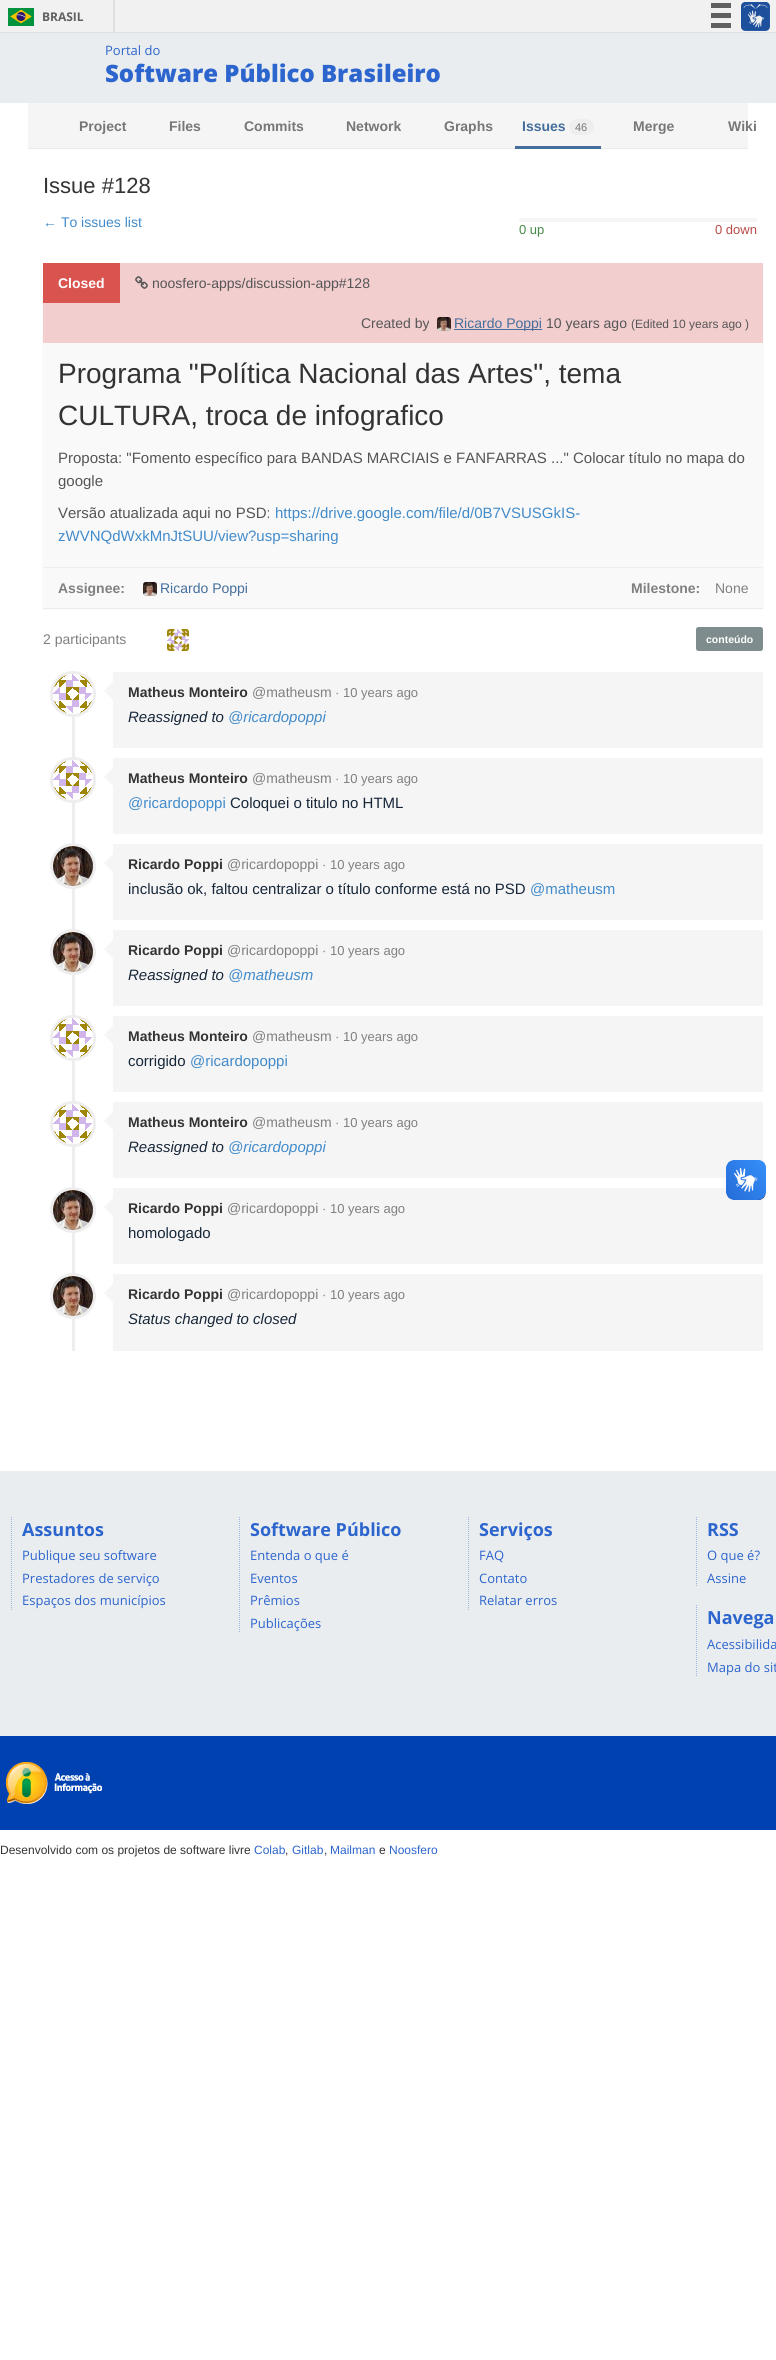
#include <cairo.h>
#include <math.h>
#include <stddef.h>

typedef struct { const char *family; double size; int italic, bold; unsigned color; } style_t;
static cairo_t *ctx;

static void ink(unsigned color) {
    cairo_set_source_rgb(ctx, (color >> 16) / 255.0, (color >> 8 & 255) / 255.0, (color & 255) / 255.0);
}

static void write(double x, double y, const char *s, const style_t *st) {
    cairo_select_font_face(ctx, st->family, st->italic ? CAIRO_FONT_SLANT_ITALIC : CAIRO_FONT_SLANT_NORMAL,
        st->bold ? CAIRO_FONT_WEIGHT_BOLD : CAIRO_FONT_WEIGHT_NORMAL);
    cairo_set_font_size(ctx, st->size);
    ink(st->color);
    cairo_move_to(ctx, x, y);
    cairo_show_text(ctx, s);
}

static void block(double x, double y, double w, double h, unsigned color) {
    ink(color);
    cairo_rectangle(ctx, x, y, w, h);
    cairo_fill(ctx);
}

static void round_path(double x, double y, double w, double h, double r) {
    cairo_new_sub_path(ctx);
    cairo_arc(ctx, x + w - r, y + h - r, r, 0, M_PI / 2);
    cairo_arc(ctx, x + r, y + h - r, r, M_PI / 2, M_PI);
    cairo_arc(ctx, x + r, y + r, r, M_PI, 1.5 * M_PI);
    cairo_arc(ctx, x + w - r, y + r, r, 1.5 * M_PI, 2 * M_PI);
    cairo_close_path(ctx);
}

static void blur_box(double x, double y, double w, double h, double r, double blur, double alpha) {
    cairo_push_group_with_content(ctx, CAIRO_CONTENT_ALPHA);
    cairo_set_operator(ctx, CAIRO_OPERATOR_SOURCE);
    for (int i = 15; i >= -15 && fmin(w, h) + blur * i / 3 > 0; i -= 2) {
        double e = blur * i / 6;
        cairo_set_source_rgba(ctx, 0, 0, 0, alpha * erfc((i - 1) / 8.5) / 2);
        round_path(x - e, y - e, w + 2 * e, h + 2 * e, fmax(0, fmin(r + e + blur * .6, fmin(w, h) / 2 + e)));
        cairo_fill(ctx);
    }
    cairo_pattern_t *soft = cairo_pop_group(ctx);
    cairo_mask(ctx, soft);
    cairo_pattern_destroy(soft);
}

static void paste(const char *path, double x, double y, double w, double h) {
    cairo_surface_t *image = cairo_image_surface_create_from_png(path);
    cairo_save(ctx);
    cairo_set_source_surface(ctx, image, x, y);
    cairo_rectangle(ctx, x, y, w, h);
    cairo_fill(ctx);
    cairo_restore(ctx);
    cairo_surface_destroy(image);
}

static const style_t s1 = {"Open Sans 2", 12, 0, 1, 0x606060};
static const style_t s2 = {"Open Sans", 13, 0, 0, 0x2c65cd};
static const style_t s3 = {"Open Sans ExtraBold", 24, 0, 0, 0x2c65cd};
static const style_t s4 = {"Liberation Sans", 14, 0, 1, 0x777777};
static const style_t s5 = {"Liberation Sans", 14, 0, 1, 0x446e9b};
static const style_t s6 = {"Liberation Sans", 11, 0, 0, 0x777777};
static const style_t s7 = {"Liberation Sans", 22, 0, 0, 0x333333};
static const style_t s8 = {"Liberation Sans", 14, 0, 0, 0x428bca};
static const style_t s9 = {"Liberation Sans", 13, 0, 0, 0x468847};
static const style_t s10 = {"Liberation Sans", 13, 0, 0, 0xb94a48};
static const style_t s11 = {"Liberation Sans", 14, 0, 1, 0xffffff};
static const style_t s12 = {"Liberation Sans", 14, 0, 0, 0x555555};
static const style_t s13 = {"Liberation Sans", 14, 0, 0, 0x446e9b};
static const style_t s14 = {"Liberation Sans", 12, 0, 0, 0x555555};
static const style_t s15 = {"Liberation Sans", 28, 0, 0, 0x333333};
static const style_t s16 = {"Liberation Sans", 15, 0, 0, 0x555555};
static const style_t s17 = {"Liberation Sans", 15, 0, 0, 0x428bca};
static const style_t s18 = {"Liberation Sans", 14, 0, 1, 0x808080};
static const style_t s19 = {"Liberation Sans", 14, 0, 0, 0x808080};
static const style_t s20 = {"Liberation Sans", 10.5, 0, 1, 0xffffff};
static const style_t s21 = {"Liberation Sans", 14, 0, 1, 0x333333};
static const style_t s22 = {"Liberation Sans", 13, 0, 0, 0x808080};
static const style_t s23 = {"Liberation Sans", 15, 1, 0, 0x172738};
static const style_t s24 = {"Liberation Sans", 15, 1, 0, 0x428bca};
static const style_t s25 = {"Liberation Sans", 15, 0, 0, 0x172738};
static const style_t s26 = {"Open Sans", 18, 0, 1, 0x2c65cd};
static const style_t s27 = {"Liberation Sans", 12, 0, 0, 0x333333};
static const style_t s28 = {"Liberation Sans", 12, 0, 0, 0x2c65cd};

int main(void) {
    cairo_surface_t *surface = cairo_image_surface_create(CAIRO_FORMAT_RGB24, 776, 2360);
    ctx = cairo_create(surface);
    cairo_font_options_t *options = cairo_font_options_create();
    cairo_font_options_set_hint_metrics(options, CAIRO_HINT_METRICS_OFF);
    cairo_font_options_set_hint_style(options, CAIRO_HINT_STYLE_NONE);
    cairo_set_font_options(ctx, options);
    cairo_set_miter_limit(ctx, 4);
    ink(0xffffff);
    cairo_paint(ctx);
    block(0, 0, 776, 32, 0xf1f1f1);
    block(0, 32, 776, 1, 0xdfdfdf);
    block(113, 0, 2, 32, 0xdfdfdf);
    paste("pic1.png", 8, 8, 26, 18);
    write(42, 21, "BRASIL", &s1);
    block(711, 3, 20, 5, 0x606060);
    block(711, 13, 20, 5, 0x606060);
    block(711, 23, 20, 5, 0x606060);
    paste("pic2.png", 741, 2, 29, 29);
    block(0, 33, 776, 70, 0xeaedf0);
    write(105, 55, "Portal do", &s2);
    write(105, 82, "Software Público Brasileiro", &s3);
    block(28, 103, 720, 45, 0xf5f5f5);
    block(28, 148, 720, 1, 0xe9e9e9);
    write(79, 131, "Project", &s4);
    write(169, 131, "Files", &s4);
    write(244, 131, "Commits", &s4);
    write(346, 131, "Network", &s4);
    write(444, 131, "Graphs", &s4);
    block(515, 146, 86, 3, 0x446e9b);
    write(522, 131, "Issues", &s5);
    ink(0xeeeeee);
    round_path(569, 119, 25, 16, 8);
    cairo_fill(ctx);
    write(575, 131, "46", &s6);
    write(633, 131, "Merge", &s4);
    write(728, 131, "Wiki", &s4);
    write(43, 193, "Issue #128", &s7);
    write(43, 227, "← To issues list", &s8);
    ink(0xf5f5f5);
    round_path(519, 218, 238, 4, 2);
    cairo_fill(ctx);
    write(519, 234, "0 up", &s9);
    write(715, 234, "0 down", &s10);
    ink(0x000000);
    blur_box(43, 264, 720, 345, 0, 0.5, 0.09);
    block(43, 343, 720, 265, 0xf9f9f9);
    block(43, 263, 720, 80, 0xf3cece);
    block(43, 263, 77, 40, 0xd9534f);
    write(58, 288, "Closed", &s11);
    paste("pic3.png", 135, 276, 13, 13);
    write(152, 288, "noosfero-apps/discussion-app#128", &s12);
    write(361, 328, "Created by", &s12);
    paste("pic4.png", 437, 317, 14, 14);
    block(454, 329, 88, 1, 0x446e9b);
    write(454, 328, "Ricardo Poppi", &s13);
    write(546, 328, "10 years ago", &s12);
    write(631, 328, "(Edited 10 years ago )", &s14);
    write(58, 383, "Programa \"Política Nacional das Artes\", tema", &s15);
    write(58, 425, "CULTURA, troca de infografico", &s15);
    write(58, 463, "Proposta: \"Fomento específico para BANDAS MARCIAIS e FANFARRAS ...\" Colocar título no mapa do", &s16);
    write(58, 486, "google", &s16);
    write(58, 518, "Versão atualizada aqui no PSD:", &s16);
    write(275, 518, "https://drive.google.com/file/d/0B7VSUSGkIS-", &s17);
    write(58, 541, "zWVNQdWxkMnJtSUU/view?usp=sharing", &s17);
    block(43, 567, 720, 1, 0xeeeeee);
    write(58, 593, "Assignee:", &s18);
    paste("pic5.png", 143, 582, 14, 14);
    write(160, 593, "Ricardo Poppi", &s13);
    write(631, 593, "Milestone:", &s18);
    write(715, 593, "None", &s19);
    write(43, 644, "2 participants", &s19);
    paste("pic6.png", 167, 629, 22, 22);
    ink(0x7f8c8d);
    round_path(696, 627, 67, 24, 2.5);
    cairo_fill(ctx);
    write(706, 643, "conteúdo", &s20);
    block(72, 672, 3, 679, 0xeeeeee);
    cairo_new_path(ctx);
    cairo_arc(ctx, 73, 694, 21.5, 0, 2 * M_PI);
    cairo_set_line_width(ctx, 3);
    cairo_stroke(ctx);
    ink(0xffffff);
    cairo_arc(ctx, 73, 694, 20, 0, 2 * M_PI);
    cairo_fill(ctx);
    paste("pic7.png", 53, 674, 39, 39);
    block(113, 672, 650, 76, 0xf5f5f6);
    cairo_new_path(ctx);
    cairo_move_to(ctx, 113, 682);
    cairo_line_to(ctx, 113, 700);
    cairo_line_to(ctx, 104, 691);
    cairo_close_path(ctx);
    cairo_fill(ctx);
    write(128, 697, "Matheus Monteiro", &s21);
    write(252, 697, "@matheusm", &s19);
    write(335, 697, "· 10 years ago", &s22);
    write(128, 722, "Reassigned to", &s23);
    write(228, 722, "@ricardopoppi", &s24);
    cairo_new_path(ctx);
    cairo_arc(ctx, 73, 780, 21.5, 0, 2 * M_PI);
    ink(0xeeeeee);
    cairo_stroke(ctx);
    ink(0xffffff);
    cairo_arc(ctx, 73, 780, 20, 0, 2 * M_PI);
    cairo_fill(ctx);
    paste("pic8.png", 53, 760, 39, 39);
    block(113, 758, 650, 76, 0xf5f5f6);
    cairo_new_path(ctx);
    cairo_move_to(ctx, 113, 768);
    cairo_line_to(ctx, 113, 786);
    cairo_line_to(ctx, 104, 777);
    cairo_close_path(ctx);
    cairo_fill(ctx);
    write(128, 783, "Matheus Monteiro", &s21);
    write(252, 783, "@matheusm", &s19);
    write(335, 783, "· 10 years ago", &s22);
    write(128, 808, "@ricardopoppi", &s17);
    write(230, 808, "Coloquei o titulo no HTML", &s25);
    cairo_new_path(ctx);
    cairo_arc(ctx, 73, 866, 21.5, 0, 2 * M_PI);
    ink(0xeeeeee);
    cairo_stroke(ctx);
    ink(0xffffff);
    cairo_arc(ctx, 73, 866, 20, 0, 2 * M_PI);
    cairo_fill(ctx);
    paste("pic9.png", 53, 846, 40, 40);
    block(113, 844, 650, 76, 0xf5f5f6);
    cairo_new_path(ctx);
    cairo_move_to(ctx, 113, 854);
    cairo_line_to(ctx, 113, 872);
    cairo_line_to(ctx, 104, 863);
    cairo_close_path(ctx);
    cairo_fill(ctx);
    write(128, 869, "Ricardo Poppi", &s21);
    write(227, 869, "@ricardopoppi", &s19);
    write(322, 869, "· 10 years ago", &s22);
    write(128, 894, "inclusão ok, faltou centralizar o título conforme está no PSD", &s25);
    write(530, 894, "@matheusm", &s17);
    cairo_new_path(ctx);
    cairo_arc(ctx, 73, 952, 21.5, 0, 2 * M_PI);
    ink(0xeeeeee);
    cairo_stroke(ctx);
    ink(0xffffff);
    cairo_arc(ctx, 73, 952, 20, 0, 2 * M_PI);
    cairo_fill(ctx);
    paste("pic9.png", 53, 932, 40, 40);
    block(113, 930, 650, 76, 0xf5f5f6);
    cairo_new_path(ctx);
    cairo_move_to(ctx, 113, 940);
    cairo_line_to(ctx, 113, 958);
    cairo_line_to(ctx, 104, 949);
    cairo_close_path(ctx);
    cairo_fill(ctx);
    write(128, 955, "Ricardo Poppi", &s21);
    write(227, 955, "@ricardopoppi", &s19);
    write(322, 955, "· 10 years ago", &s22);
    write(128, 980, "Reassigned to", &s23);
    write(228, 980, "@matheusm", &s24);
    cairo_new_path(ctx);
    cairo_arc(ctx, 73, 1038, 21.5, 0, 2 * M_PI);
    ink(0xeeeeee);
    cairo_stroke(ctx);
    ink(0xffffff);
    cairo_arc(ctx, 73, 1038, 20, 0, 2 * M_PI);
    cairo_fill(ctx);
    paste("pic7.png", 53, 1018, 39, 39);
    block(113, 1016, 650, 76, 0xf5f5f6);
    cairo_new_path(ctx);
    cairo_move_to(ctx, 113, 1026);
    cairo_line_to(ctx, 113, 1044);
    cairo_line_to(ctx, 104, 1035);
    cairo_close_path(ctx);
    cairo_fill(ctx);
    write(128, 1041, "Matheus Monteiro", &s21);
    write(252, 1041, "@matheusm", &s19);
    write(335, 1041, "· 10 years ago", &s22);
    write(128, 1066, "corrigido", &s25);
    write(190, 1066, "@ricardopoppi", &s17);
    cairo_new_path(ctx);
    cairo_arc(ctx, 73, 1124, 21.5, 0, 2 * M_PI);
    ink(0xeeeeee);
    cairo_stroke(ctx);
    ink(0xffffff);
    cairo_arc(ctx, 73, 1124, 20, 0, 2 * M_PI);
    cairo_fill(ctx);
    paste("pic7.png", 53, 1104, 39, 39);
    block(113, 1102, 650, 76, 0xf5f5f6);
    cairo_new_path(ctx);
    cairo_move_to(ctx, 113, 1112);
    cairo_line_to(ctx, 113, 1130);
    cairo_line_to(ctx, 104, 1121);
    cairo_close_path(ctx);
    cairo_fill(ctx);
    write(128, 1127, "Matheus Monteiro", &s21);
    write(252, 1127, "@matheusm", &s19);
    write(335, 1127, "· 10 years ago", &s22);
    write(128, 1152, "Reassigned to", &s23);
    write(228, 1152, "@ricardopoppi", &s24);
    cairo_new_path(ctx);
    cairo_arc(ctx, 73, 1210, 21.5, 0, 2 * M_PI);
    ink(0xeeeeee);
    cairo_stroke(ctx);
    ink(0xffffff);
    cairo_arc(ctx, 73, 1210, 20, 0, 2 * M_PI);
    cairo_fill(ctx);
    paste("pic9.png", 53, 1190, 40, 40);
    block(113, 1188, 650, 76, 0xf5f5f6);
    cairo_new_path(ctx);
    cairo_move_to(ctx, 113, 1198);
    cairo_line_to(ctx, 113, 1216);
    cairo_line_to(ctx, 104, 1207);
    cairo_close_path(ctx);
    cairo_fill(ctx);
    write(128, 1213, "Ricardo Poppi", &s21);
    write(227, 1213, "@ricardopoppi", &s19);
    write(322, 1213, "· 10 years ago", &s22);
    write(128, 1238, "homologado", &s25);
    cairo_new_path(ctx);
    cairo_arc(ctx, 73, 1296, 21.5, 0, 2 * M_PI);
    ink(0xeeeeee);
    cairo_stroke(ctx);
    ink(0xffffff);
    cairo_arc(ctx, 73, 1296, 20, 0, 2 * M_PI);
    cairo_fill(ctx);
    paste("pic9.png", 53, 1276, 40, 40);
    block(113, 1274, 650, 77, 0xf5f5f6);
    cairo_new_path(ctx);
    cairo_move_to(ctx, 113, 1284);
    cairo_line_to(ctx, 113, 1302);
    cairo_line_to(ctx, 104, 1293);
    cairo_close_path(ctx);
    cairo_fill(ctx);
    write(128, 1299, "Ricardo Poppi", &s21);
    write(227, 1299, "@ricardopoppi", &s19);
    write(322, 1299, "· 10 years ago", &s22);
    write(128, 1324, "Status changed to closed", &s23);
    paste("pic10.png", 726, 1160, 40, 40);
    paste("pic11.png", 726, 1160, 40, 40);
    block(0, 1471, 776, 265, 0xeaedf0);
    cairo_new_path(ctx);
    cairo_move_to(ctx, 11.5, 1517);
    cairo_line_to(ctx, 11.5, 1610);
    ink(0x9cb5e2);
    cairo_set_line_width(ctx, 1);
    cairo_set_dash(ctx, (double[]){1, 1}, 2, 0);
    cairo_stroke(ctx);
    write(22, 1536, "Assuntos", &s26);
    write(22, 1560, "Publique seu software", &s2);
    write(22, 1583, "Prestadores de serviço", &s2);
    write(22, 1605, "Espaços dos municípios", &s2);
    cairo_new_path(ctx);
    cairo_move_to(ctx, 239.5, 1517);
    cairo_line_to(ctx, 239.5, 1632);
    ink(0x9cb5e2);
    cairo_stroke(ctx);
    write(250, 1536, "Software Público", &s26);
    write(250, 1560, "Entenda o que é", &s2);
    write(250, 1583, "Eventos", &s2);
    write(250, 1605, "Prêmios", &s2);
    write(250, 1628, "Publicações", &s2);
    cairo_new_path(ctx);
    cairo_move_to(ctx, 468.5, 1517);
    cairo_line_to(ctx, 468.5, 1610);
    ink(0x9cb5e2);
    cairo_stroke(ctx);
    write(479, 1536, "Serviços", &s26);
    write(479, 1560, "FAQ", &s2);
    write(479, 1583, "Contato", &s2);
    write(479, 1605, "Relatar erros", &s2);
    cairo_new_path(ctx);
    cairo_move_to(ctx, 696.5, 1517);
    cairo_line_to(ctx, 696.5, 1587);
    ink(0x9cb5e2);
    cairo_stroke(ctx);
    write(707, 1536, "RSS", &s26);
    write(707, 1560, "O que é?", &s2);
    write(707, 1583, "Assine", &s2);
    cairo_new_path(ctx);
    cairo_move_to(ctx, 696.5, 1605);
    cairo_line_to(ctx, 696.5, 1676);
    ink(0x9cb5e2);
    cairo_stroke(ctx);
    write(707, 1624, "Navega", &s26);
    write(707, 1649, "Acessibilida", &s2);
    write(707, 1672, "Mapa do sit", &s2);
    block(0, 1736, 776, 94, 0x0041b1);
    paste("pic12.png", 6, 1762, 96, 42);
    write(0, 1854, "Desenvolvido com os projetos de software livre", &s27);
    write(254, 1854, "Colab", &s28);
    write(285, 1854, ",", &s27);
    write(292, 1854, "Gitlab", &s28);
    write(324, 1854, ",", &s27);
    write(330, 1854, "Mailman", &s28);
    write(379, 1854, "e", &s27);
    write(389, 1854, "Noosfero", &s28);
    cairo_surface_write_to_png(surface, "screenshot.png");
    cairo_font_options_destroy(options);
    cairo_destroy(ctx);
    cairo_surface_destroy(surface);
    return 0;
}
